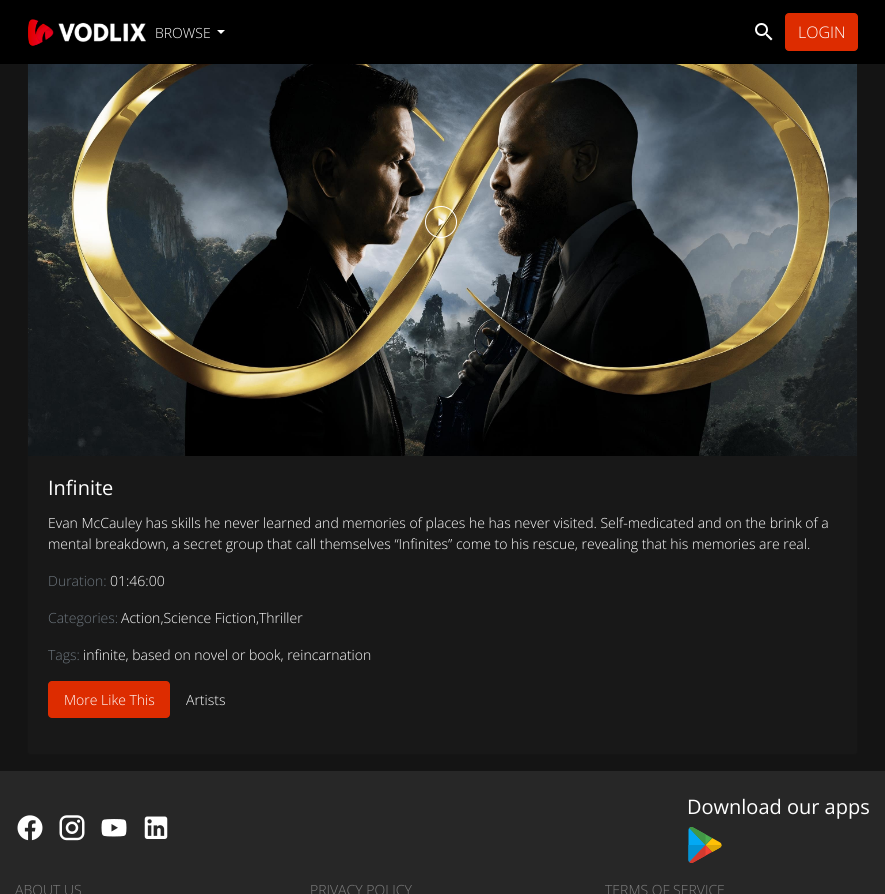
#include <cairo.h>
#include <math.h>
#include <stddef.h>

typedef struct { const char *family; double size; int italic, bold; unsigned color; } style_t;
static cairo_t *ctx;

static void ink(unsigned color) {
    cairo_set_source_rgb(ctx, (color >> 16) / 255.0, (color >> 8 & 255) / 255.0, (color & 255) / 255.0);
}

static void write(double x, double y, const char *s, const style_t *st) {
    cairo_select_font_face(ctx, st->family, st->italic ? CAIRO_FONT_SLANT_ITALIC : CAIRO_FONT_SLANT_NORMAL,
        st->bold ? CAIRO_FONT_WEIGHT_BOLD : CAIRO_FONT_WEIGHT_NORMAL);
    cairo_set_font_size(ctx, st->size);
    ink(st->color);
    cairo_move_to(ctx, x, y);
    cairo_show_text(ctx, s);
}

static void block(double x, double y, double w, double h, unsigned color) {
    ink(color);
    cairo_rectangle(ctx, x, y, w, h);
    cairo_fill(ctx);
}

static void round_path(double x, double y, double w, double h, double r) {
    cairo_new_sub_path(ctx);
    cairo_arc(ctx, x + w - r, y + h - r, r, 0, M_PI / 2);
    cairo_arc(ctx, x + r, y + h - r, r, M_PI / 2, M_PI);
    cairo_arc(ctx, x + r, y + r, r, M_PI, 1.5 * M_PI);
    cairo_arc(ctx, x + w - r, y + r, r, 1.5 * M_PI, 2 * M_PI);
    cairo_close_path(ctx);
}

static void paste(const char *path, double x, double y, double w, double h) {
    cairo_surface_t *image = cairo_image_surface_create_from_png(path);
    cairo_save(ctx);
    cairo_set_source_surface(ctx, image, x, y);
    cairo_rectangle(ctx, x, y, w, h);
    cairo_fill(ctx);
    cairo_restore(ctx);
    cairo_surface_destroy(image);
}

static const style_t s1 = {"Open Sans Light", 14, 0, 0, 0xffffff};
static const style_t s2 = {"Open Sans Light", 16, 0, 0, 0xffffff};
static const style_t s3 = {"Open Sans", 20, 0, 0, 0xffffff};
static const style_t s4 = {"Open Sans Light", 14, 0, 0, 0x6c757d};
static const style_t s5 = {"Open Sans Light", 14, 0, 0, 0x808080};

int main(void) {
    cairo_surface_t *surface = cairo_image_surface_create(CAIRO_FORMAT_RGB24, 885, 894);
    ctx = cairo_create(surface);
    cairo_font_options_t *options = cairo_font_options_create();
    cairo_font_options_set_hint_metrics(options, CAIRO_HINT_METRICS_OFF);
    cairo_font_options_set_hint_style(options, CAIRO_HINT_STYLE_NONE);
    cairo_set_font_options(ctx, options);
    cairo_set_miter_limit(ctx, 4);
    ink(0x141414);
    cairo_paint(ctx);
    ink(0x181818);
    round_path(27.5, -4.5, 830, 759, 3.5);
    cairo_fill_preserve(ctx);
    ink(0x151515);
    cairo_set_line_width(ctx, 1);
    cairo_stroke(ctx);
    block(0, 0, 885, 64, 0x000000);
    paste("pic1.png", 28, 19, 118, 27);
    write(155, 38, "BROWSE", &s1);
    cairo_new_path(ctx);
    cairo_move_to(ctx, 217, 30);
    cairo_line_to(ctx, 225, 30);
    cairo_line_to(ctx, 221, 34);
    cairo_close_path(ctx);
    cairo_fill(ctx);
    paste("pic2.png", 755, 23, 18, 18);
    ink(0xdd2c00);
    round_path(785.5, 13.5, 72, 37, 3.5);
    cairo_fill_preserve(ctx);
    cairo_stroke(ctx);
    write(798, 38, "LOGIN", &s2);
    paste("pic3.png", 28, 64, 829, 392);
    cairo_arc(ctx, 441, 222, 15.5, 0, 2 * M_PI);
    cairo_stroke(ctx);
    cairo_new_path(ctx);
    cairo_move_to(ctx, 438.5, 218);
    cairo_line_to(ctx, 438.5, 226);
    cairo_line_to(ctx, 445, 222);
    cairo_close_path(ctx);
    cairo_fill(ctx);
    write(48, 495, "Infinite", &s3);
    write(48, 528, "Evan McCauley has skills he never learned and memories of places he has never visited. Self-medicated and on the brink of a", &s1);
    write(48, 549, "mental breakdown, a secret group that call themselves “Infinites” come to his rescue, revealing that his memories are real.", &s1);
    write(48, 586, "Duration:", &s4);
    write(110, 586, "01:46:00", &s1);
    write(48, 623, "Categories:", &s4);
    write(121, 623, "Action,Science Fiction,Thriller", &s1);
    write(48, 660, "Tags:", &s4);
    write(83, 660, "infinite, based on novel or book, reincarnation", &s1);
    ink(0xdd2c00);
    round_path(48, 681, 122, 37, 4);
    cairo_fill(ctx);
    write(64, 705, "More Like This", &s1);
    write(186, 705, "Artists", &s1);
    block(0, 771, 885, 123, 0x272727);
    write(687, 814, "Download our apps", &s3);
    paste("pic4.png", 688, 827, 34, 36);
    paste("pic5.png", 17, 815, 26, 26);
    paste("pic6.png", 59, 815, 26, 26);
    paste("pic7.png", 101, 819, 26, 18);
    paste("pic8.png", 144, 816, 24, 23);
    write(15, 895, "ABOUT US", &s5);
    write(310, 895, "PRIVACY POLICY", &s5);
    write(605, 895, "TERMS OF SERVICE", &s5);
    cairo_surface_write_to_png(surface, "screenshot.png");
    cairo_font_options_destroy(options);
    cairo_destroy(ctx);
    cairo_surface_destroy(surface);
    return 0;
}
